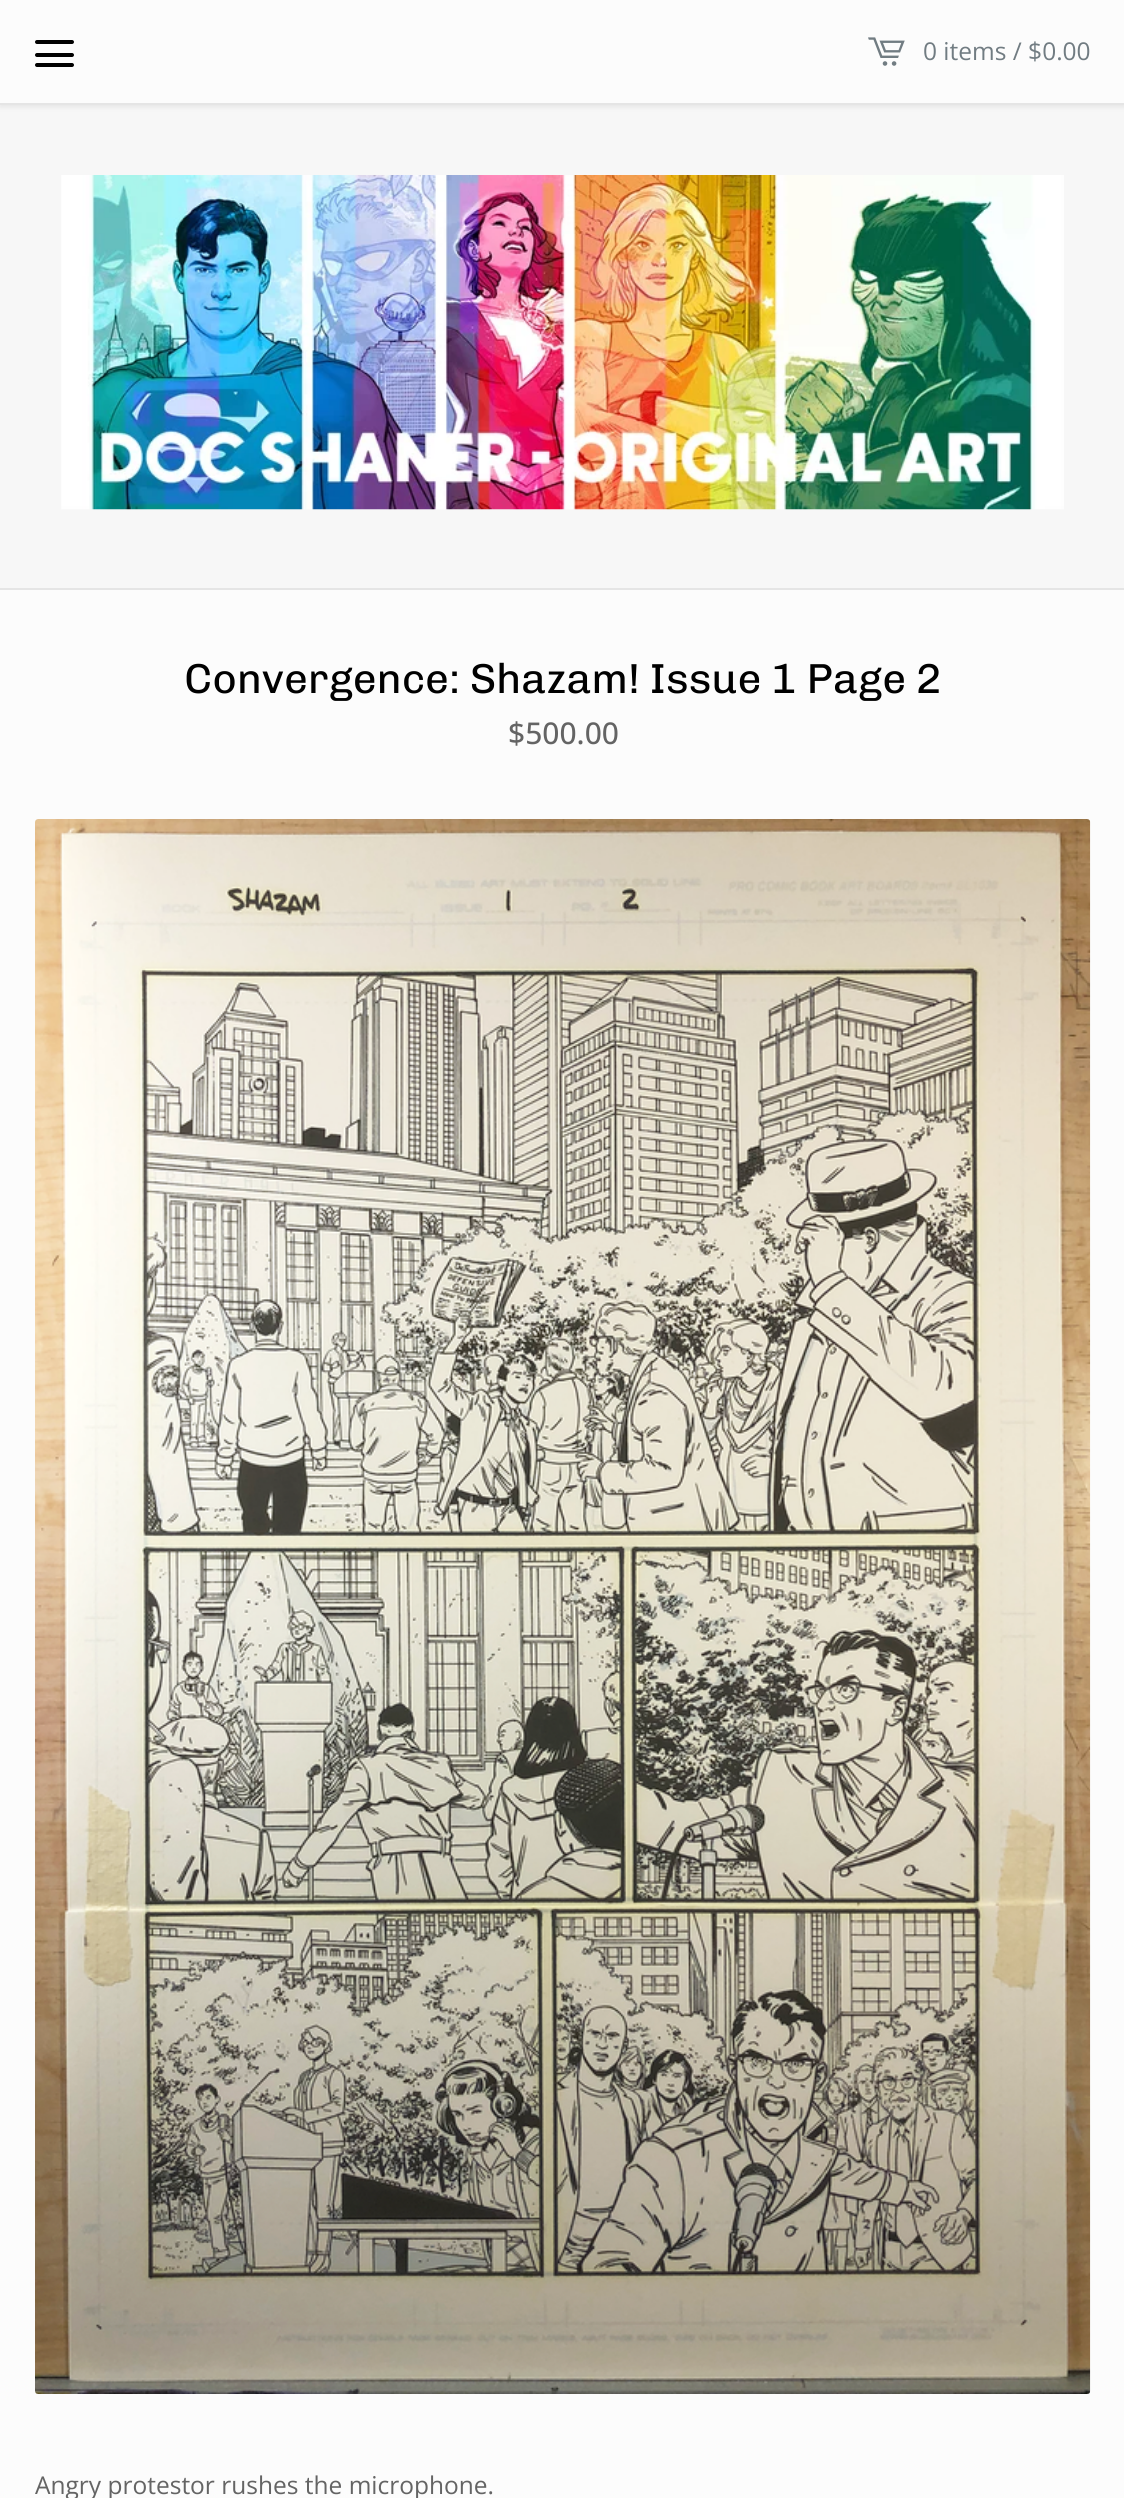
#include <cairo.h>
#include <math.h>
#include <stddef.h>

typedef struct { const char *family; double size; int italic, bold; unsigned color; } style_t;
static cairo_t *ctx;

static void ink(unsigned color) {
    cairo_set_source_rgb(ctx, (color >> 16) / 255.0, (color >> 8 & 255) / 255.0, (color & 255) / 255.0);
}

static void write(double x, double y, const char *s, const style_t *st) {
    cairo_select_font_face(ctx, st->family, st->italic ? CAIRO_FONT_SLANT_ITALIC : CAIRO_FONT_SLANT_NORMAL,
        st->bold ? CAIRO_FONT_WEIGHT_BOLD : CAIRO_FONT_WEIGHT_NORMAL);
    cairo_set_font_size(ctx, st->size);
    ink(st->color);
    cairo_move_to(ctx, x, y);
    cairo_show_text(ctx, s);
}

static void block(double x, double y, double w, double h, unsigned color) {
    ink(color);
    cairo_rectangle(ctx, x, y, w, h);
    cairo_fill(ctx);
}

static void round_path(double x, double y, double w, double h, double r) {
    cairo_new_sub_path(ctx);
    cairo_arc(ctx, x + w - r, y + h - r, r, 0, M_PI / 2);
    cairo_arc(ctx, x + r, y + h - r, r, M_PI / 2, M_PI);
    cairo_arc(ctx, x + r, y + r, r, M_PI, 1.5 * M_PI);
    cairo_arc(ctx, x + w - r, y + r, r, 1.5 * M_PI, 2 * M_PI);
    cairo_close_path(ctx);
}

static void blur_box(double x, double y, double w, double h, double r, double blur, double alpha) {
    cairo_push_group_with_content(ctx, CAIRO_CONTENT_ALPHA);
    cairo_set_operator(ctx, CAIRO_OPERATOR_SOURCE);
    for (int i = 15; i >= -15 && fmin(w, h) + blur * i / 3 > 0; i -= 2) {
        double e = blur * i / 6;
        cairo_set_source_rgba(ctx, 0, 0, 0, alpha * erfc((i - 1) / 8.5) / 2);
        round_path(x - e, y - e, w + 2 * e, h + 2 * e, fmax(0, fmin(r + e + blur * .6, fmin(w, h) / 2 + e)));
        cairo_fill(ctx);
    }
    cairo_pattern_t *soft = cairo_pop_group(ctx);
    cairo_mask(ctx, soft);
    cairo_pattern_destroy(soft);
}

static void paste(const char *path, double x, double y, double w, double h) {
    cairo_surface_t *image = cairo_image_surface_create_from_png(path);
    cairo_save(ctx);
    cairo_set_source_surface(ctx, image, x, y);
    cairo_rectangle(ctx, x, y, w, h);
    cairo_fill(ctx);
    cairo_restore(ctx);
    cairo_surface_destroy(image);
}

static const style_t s1 = {"Open Sans", 24.5, 0, 0, 0x717c82};
static const style_t s2 = {"Chivo", 42, 0, 0, 0x000000};
static const style_t s3 = {"Open Sans Medium", 30, 0, 0, 0x646464};
static const style_t s4 = {"Open Sans", 24.5, 0, 0, 0x646464};

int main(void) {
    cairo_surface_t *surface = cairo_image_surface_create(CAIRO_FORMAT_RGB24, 1124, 2498);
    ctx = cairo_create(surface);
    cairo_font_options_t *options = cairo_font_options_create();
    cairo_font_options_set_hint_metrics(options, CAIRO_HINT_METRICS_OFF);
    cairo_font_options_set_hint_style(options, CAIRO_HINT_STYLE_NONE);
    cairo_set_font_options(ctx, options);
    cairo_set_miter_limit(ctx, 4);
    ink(0xfcfcfc);
    cairo_paint(ctx);
    block(0, 105, 1124, 483, 0xf7f7f7);
    ink(0xe5e5e5);
    blur_box(0, 2, 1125, 105, 0, 2.5, 1);
    block(0, 0, 1124, 103, 0xfcfcfc);
    block(0, 103, 1124, 2, 0xe5e5e5);
    ink(0x000000);
    round_path(35, 40, 39, 4, 2);
    cairo_fill(ctx);
    round_path(35, 53, 39, 4, 2);
    cairo_fill(ctx);
    round_path(35, 63, 39, 4, 2);
    cairo_fill(ctx);
    paste("pic1.png", 868, 37, 37, 29);
    write(923, 60, "0 items / $0.00", &s1);
    block(0, 588, 1124, 2, 0xe5e5e5);
    paste("pic2.png", 61, 175, 1003, 335);
    write(184, 693, "Convergence: Shazam! Issue 1 Page 2", &s2);
    write(508, 744, "$500.00", &s3);
    paste("pic3.png", 35, 819, 1056, 1575);
    write(35, 2494, "Angry protestor rushes the microphone.", &s4);
    cairo_surface_write_to_png(surface, "screenshot.png");
    cairo_font_options_destroy(options);
    cairo_destroy(ctx);
    cairo_surface_destroy(surface);
    return 0;
}
